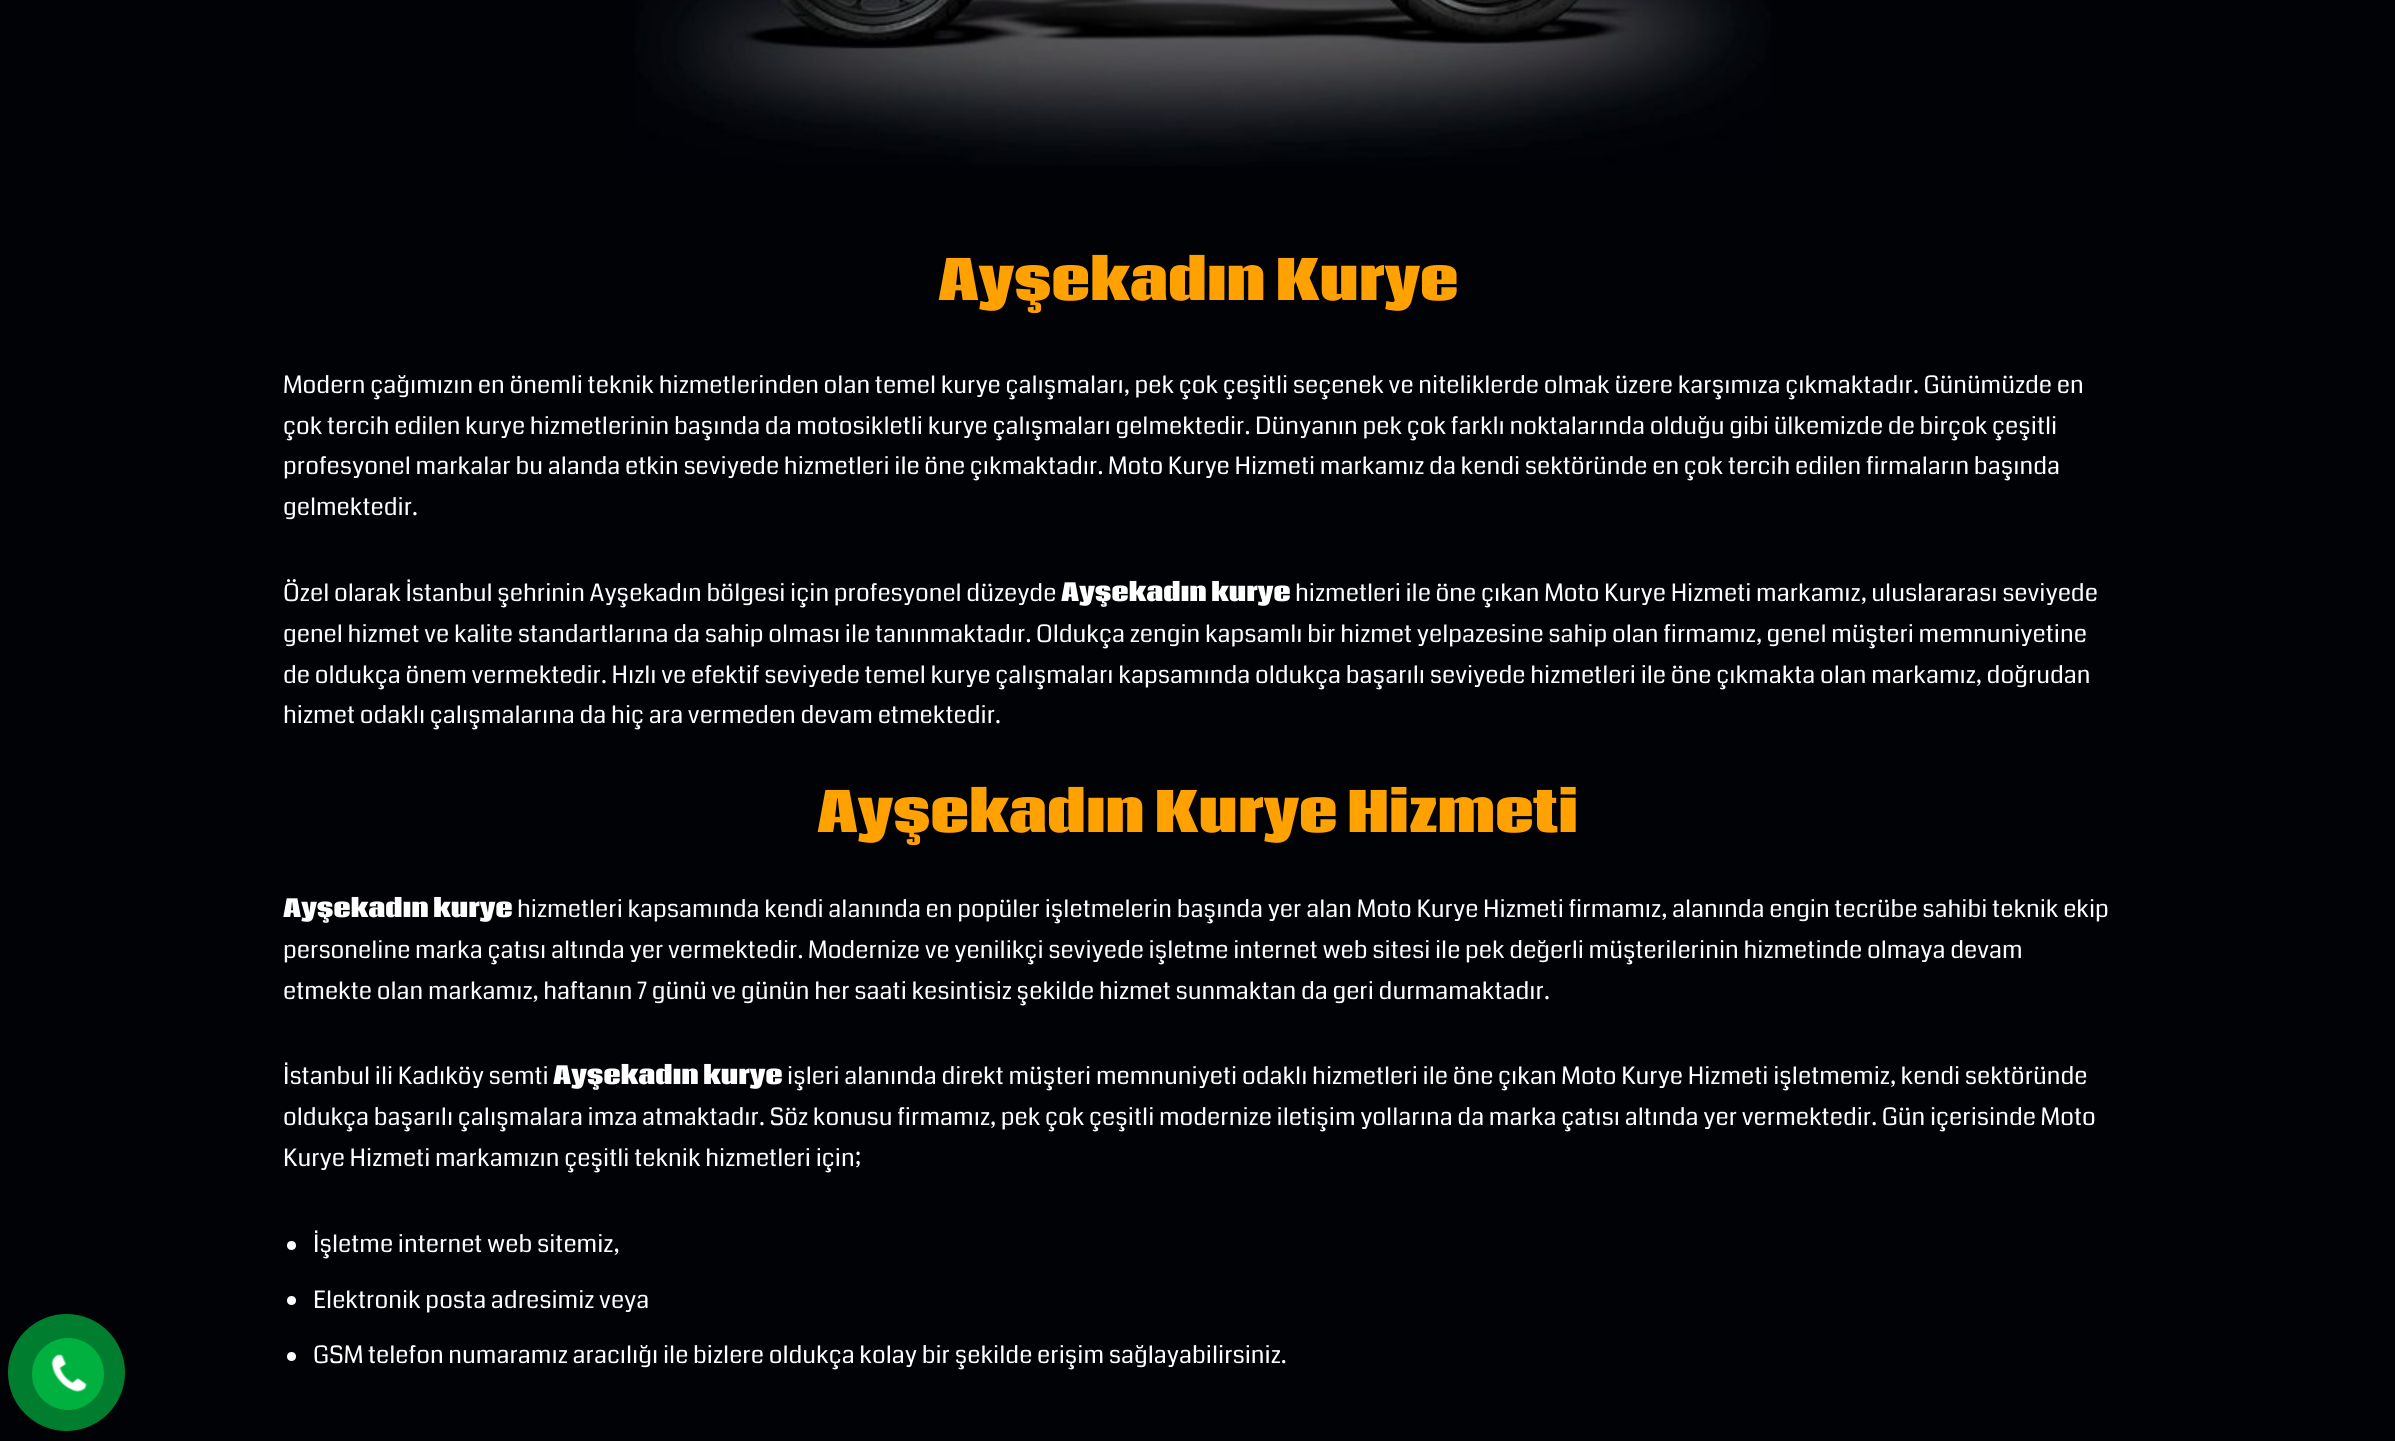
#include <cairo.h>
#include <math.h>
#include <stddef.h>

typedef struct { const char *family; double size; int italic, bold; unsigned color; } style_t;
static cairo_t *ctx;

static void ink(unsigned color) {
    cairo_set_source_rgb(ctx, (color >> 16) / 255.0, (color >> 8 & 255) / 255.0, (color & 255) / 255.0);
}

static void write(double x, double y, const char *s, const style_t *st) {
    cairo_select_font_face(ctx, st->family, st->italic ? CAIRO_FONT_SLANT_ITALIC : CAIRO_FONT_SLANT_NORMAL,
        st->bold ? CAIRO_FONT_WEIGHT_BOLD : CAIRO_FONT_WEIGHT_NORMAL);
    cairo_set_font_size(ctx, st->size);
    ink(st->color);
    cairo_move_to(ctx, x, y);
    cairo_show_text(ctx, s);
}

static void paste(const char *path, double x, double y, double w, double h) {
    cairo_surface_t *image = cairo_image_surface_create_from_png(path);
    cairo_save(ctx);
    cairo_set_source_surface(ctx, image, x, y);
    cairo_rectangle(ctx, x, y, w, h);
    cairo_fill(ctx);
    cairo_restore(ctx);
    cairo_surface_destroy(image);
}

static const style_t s1 = {"Coda ExtraBold", 54, 0, 0, 0xffa101};
static const style_t s2 = {"Coda", 24, 0, 0, 0xffffff};
static const style_t s3 = {"Coda ExtraBold", 24, 0, 0, 0xffffff};

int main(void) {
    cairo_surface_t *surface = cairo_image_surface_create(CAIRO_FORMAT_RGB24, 2395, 1441);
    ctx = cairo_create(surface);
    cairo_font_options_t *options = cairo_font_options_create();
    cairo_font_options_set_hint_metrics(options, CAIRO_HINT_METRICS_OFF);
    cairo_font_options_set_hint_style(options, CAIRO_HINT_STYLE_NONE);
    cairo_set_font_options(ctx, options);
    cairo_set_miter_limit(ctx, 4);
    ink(0x010206);
    cairo_paint(ctx);
    ink(0x007d2f);
    cairo_arc(ctx, 66.5, 1372.5, 58.5, 0, 2 * M_PI);
    cairo_fill(ctx);
    ink(0x00b140);
    cairo_arc(ctx, 68, 1374, 36, 0, 2 * M_PI);
    cairo_fill(ctx);
    paste("pic1.png", 51, 1354, 36, 38);
    paste("pic2.png", 635, 0, 1136, 166);
    write(938, 300, "Ayşekadın Kurye", &s1);
    write(283, 393, "Modern çağımızın en önemli teknik hizmetlerinden olan temel kurye çalışmaları, pek çok çeşitli seçenek ve niteliklerde olmak üzere karşımıza çıkmaktadır. Günümüzde en", &s2);
    write(283, 434, "çok tercih edilen kurye hizmetlerinin başında da motosikletli kurye çalışmaları gelmektedir. Dünyanın pek çok farklı noktalarında olduğu gibi ülkemizde de birçok çeşitli", &s2);
    write(283, 474, "profesyonel markalar bu alanda etkin seviyede hizmetleri ile öne çıkmaktadır. Moto Kurye Hizmeti markamız da kendi sektöründe en çok tercih edilen firmaların başında", &s2);
    write(283, 515, "gelmektedir.", &s2);
    write(283, 601, "Özel olarak İstanbul şehrinin Ayşekadın bölgesi için profesyonel düzeyde", &s2);
    write(1061, 601, "Ayşekadın kurye", &s3);
    write(1295, 601, "hizmetleri ile öne çıkan Moto Kurye Hizmeti markamız, uluslararası seviyede", &s2);
    write(283, 642, "genel hizmet ve kalite standartlarına da sahip olması ile tanınmaktadır. Oldukça zengin kapsamlı bir hizmet yelpazesine sahip olan firmamız, genel müşteri memnuniyetine", &s2);
    write(283, 683, "de oldukça önem vermektedir. Hızlı ve efektif seviyede temel kurye çalışmaları kapsamında oldukça başarılı seviyede hizmetleri ile öne çıkmakta olan markamız, doğrudan", &s2);
    write(283, 723, "hizmet odaklı çalışmalarına da hiç ara vermeden devam etmektedir.", &s2);
    write(817, 832, "Ayşekadın Kurye Hizmeti", &s1);
    write(283, 917, "Ayşekadın kurye", &s3);
    write(517, 917, "hizmetleri kapsamında kendi alanında en popüler işletmelerin başında yer alan Moto Kurye Hizmeti firmamız, alanında engin tecrübe sahibi teknik ekip", &s2);
    write(283, 958, "personeline marka çatısı altında yer vermektedir. Modernize ve yenilikçi seviyede işletme internet web sitesi ile pek değerli müşterilerinin hizmetinde olmaya devam", &s2);
    write(283, 999, "etmekte olan markamız, haftanın 7 günü ve günün her saati kesintisiz şekilde hizmet sunmaktan da geri durmamaktadır.", &s2);
    write(283, 1084, "İstanbul ili Kadıköy semti", &s2);
    write(553, 1084, "Ayşekadın kurye", &s3);
    write(787, 1084, "işleri alanında direkt müşteri memnuniyeti odaklı hizmetleri ile öne çıkan Moto Kurye Hizmeti işletmemiz, kendi sektöründe", &s2);
    write(283, 1125, "oldukça başarılı çalışmalara imza atmaktadır. Söz konusu firmamız, pek çok çeşitli modernize iletişim yollarına da marka çatısı altında yer vermektedir. Gün içerisinde Moto", &s2);
    write(283, 1166, "Kurye Hizmeti markamızın çeşitli teknik hizmetleri için;", &s2);
    cairo_new_path(ctx);
    cairo_arc(ctx, 291.5, 1245.5, 4.5, 0, 2 * M_PI);
    cairo_fill(ctx);
    write(313, 1252, "İşletme internet web sitemiz,", &s2);
    cairo_new_path(ctx);
    cairo_arc(ctx, 291.5, 1300.5, 4.5, 0, 2 * M_PI);
    cairo_fill(ctx);
    write(313, 1308, "Elektronik posta adresimiz veya", &s2);
    cairo_new_path(ctx);
    cairo_arc(ctx, 291.5, 1356.5, 4.5, 0, 2 * M_PI);
    cairo_fill(ctx);
    write(313, 1363, "GSM telefon numaramız aracılığı ile bizlere oldukça kolay bir şekilde erişim sağlayabilirsiniz.", &s2);
    cairo_surface_write_to_png(surface, "screenshot.png");
    cairo_font_options_destroy(options);
    cairo_destroy(ctx);
    cairo_surface_destroy(surface);
    return 0;
}
